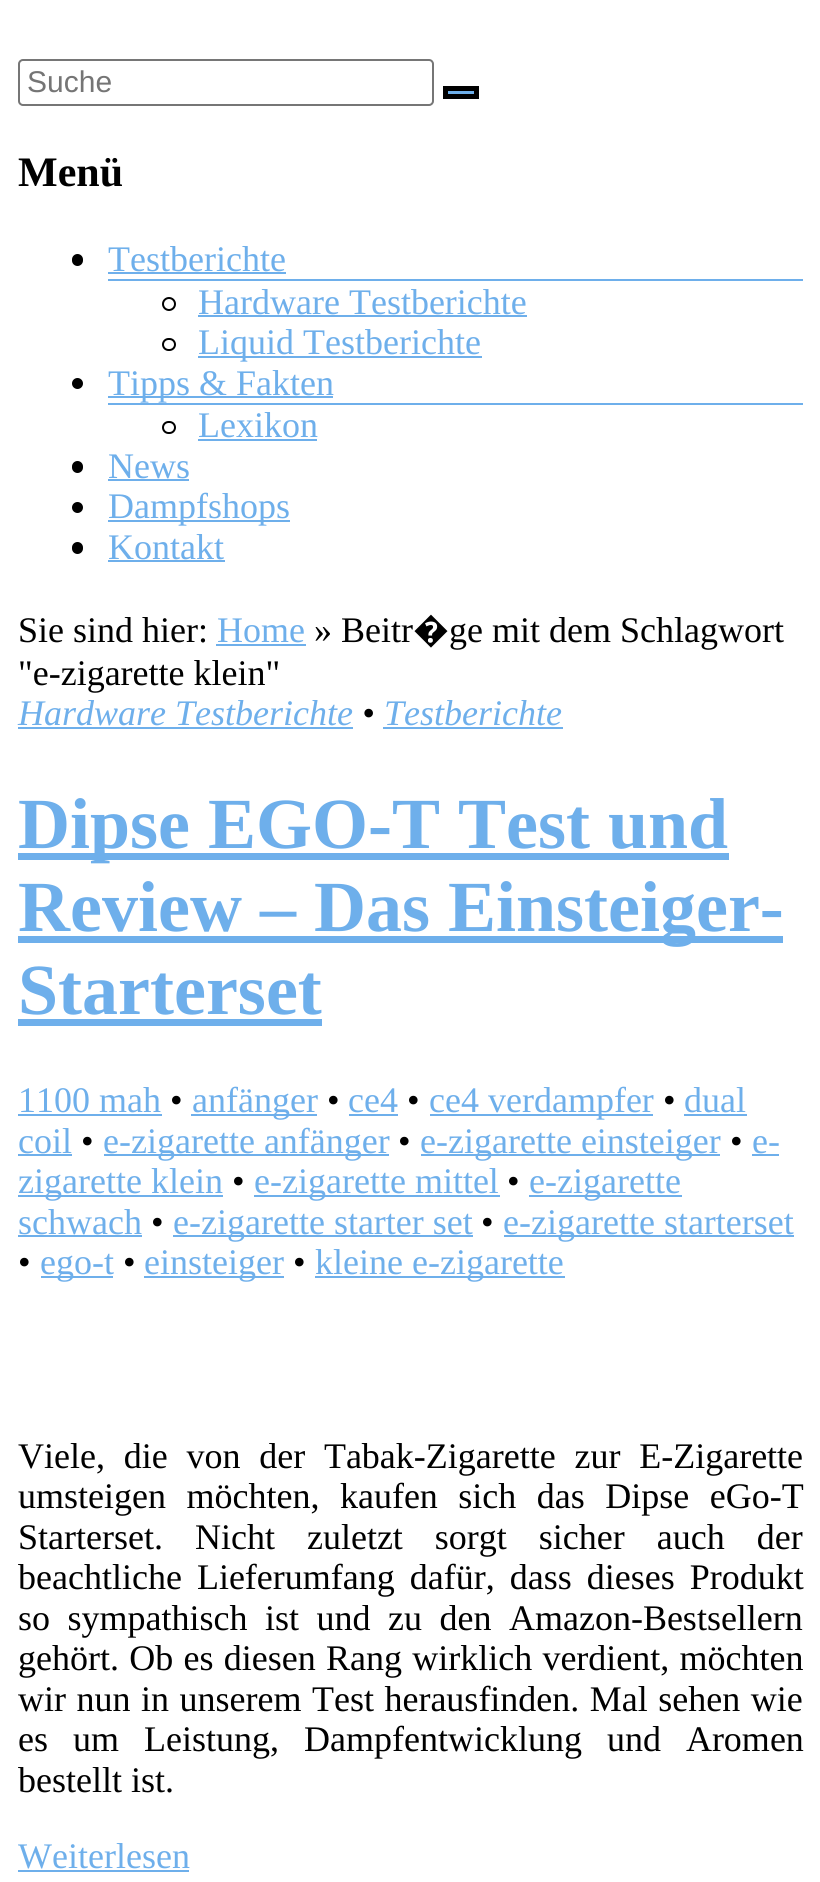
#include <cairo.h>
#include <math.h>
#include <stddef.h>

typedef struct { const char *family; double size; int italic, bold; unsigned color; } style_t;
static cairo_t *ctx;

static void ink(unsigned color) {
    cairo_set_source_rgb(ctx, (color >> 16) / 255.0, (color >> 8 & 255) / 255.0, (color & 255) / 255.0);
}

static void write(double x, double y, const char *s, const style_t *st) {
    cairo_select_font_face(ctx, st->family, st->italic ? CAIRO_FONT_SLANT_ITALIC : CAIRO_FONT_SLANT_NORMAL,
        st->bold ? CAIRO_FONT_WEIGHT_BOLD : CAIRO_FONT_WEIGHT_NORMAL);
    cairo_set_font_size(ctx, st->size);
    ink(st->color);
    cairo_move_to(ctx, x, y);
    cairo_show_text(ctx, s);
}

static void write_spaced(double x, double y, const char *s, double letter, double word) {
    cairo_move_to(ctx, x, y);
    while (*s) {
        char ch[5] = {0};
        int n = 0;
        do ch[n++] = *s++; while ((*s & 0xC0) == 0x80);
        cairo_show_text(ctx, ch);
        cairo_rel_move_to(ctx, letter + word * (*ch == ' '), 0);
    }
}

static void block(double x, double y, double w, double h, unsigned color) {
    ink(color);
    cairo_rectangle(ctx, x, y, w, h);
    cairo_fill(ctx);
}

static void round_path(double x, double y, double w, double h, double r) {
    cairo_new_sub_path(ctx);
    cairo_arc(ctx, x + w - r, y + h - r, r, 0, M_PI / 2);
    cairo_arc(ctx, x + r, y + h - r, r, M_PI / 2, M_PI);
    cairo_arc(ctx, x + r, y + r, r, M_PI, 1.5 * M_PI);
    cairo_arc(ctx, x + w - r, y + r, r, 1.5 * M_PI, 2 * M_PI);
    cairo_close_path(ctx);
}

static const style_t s1 = {"Liberation Sans", 30, 0, 0, 0x757575};
static const style_t s2 = {"Liberation Serif", 42, 0, 1, 0x000000};
static const style_t s3 = {"Liberation Serif", 36, 0, 0, 0x6eafeb};
static const style_t s4 = {"Liberation Serif", 36, 0, 0, 0x000000};
static const style_t s5 = {"Noto Sans", 36, 0, 0, 0x000000};
static const style_t s6 = {"Liberation Serif", 36, 1, 0, 0x6eafeb};
static const style_t s7 = {"Liberation Serif", 36, 1, 0, 0x000000};
static const style_t s8 = {"Liberation Serif", 72, 0, 1, 0x6eafeb};

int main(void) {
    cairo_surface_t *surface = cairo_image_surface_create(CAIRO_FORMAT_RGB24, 820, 1882);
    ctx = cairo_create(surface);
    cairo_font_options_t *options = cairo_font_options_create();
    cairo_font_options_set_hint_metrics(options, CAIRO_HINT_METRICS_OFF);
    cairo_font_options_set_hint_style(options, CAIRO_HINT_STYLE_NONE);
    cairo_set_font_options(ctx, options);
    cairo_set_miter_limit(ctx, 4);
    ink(0xffffff);
    cairo_paint(ctx);
    round_path(19, 60, 414, 45, 4);
    ink(0x767676);
    cairo_stroke(ctx);
    write(27, 92, "Suche", &s1);
    ink(0x6eafeb);
    cairo_rectangle(ctx, 445.5, 88.5, 31, 8);
    cairo_fill_preserve(ctx);
    ink(0x000000);
    cairo_set_line_width(ctx, 5);
    cairo_stroke(ctx);
    write(18, 186, "Menü", &s2);
    round_path(72, 254, 11, 12, 5.5);
    cairo_fill(ctx);
    write(108, 271, "Testberichte", &s3);
    block(108, 272, 178, 2, 0x6eafeb);
    block(108, 279, 695, 2, 0x6eafeb);
    cairo_new_path(ctx);
    cairo_arc(ctx, 169, 304, 6, 0, 2 * M_PI);
    ink(0x000000);
    cairo_set_line_width(ctx, 2);
    cairo_stroke(ctx);
    write(198, 314, "Hardware Testberichte", &s3);
    block(198, 315, 329, 2, 0x6eafeb);
    round_path(163, 339, 12, 11, 5.5);
    ink(0x000000);
    cairo_stroke(ctx);
    block(198, 356, 284, 2, 0x6eafeb);
    write(198, 354, "Liquid Testberichte", &s3);
    ink(0x000000);
    cairo_new_path(ctx);
    cairo_arc(ctx, 77.5, 383.5, 5.5, 0, 2 * M_PI);
    cairo_fill(ctx);
    block(108, 396, 225, 2, 0x6eafeb);
    write(108, 395, "Tipps & Fakten", &s3);
    block(108, 403, 695, 2, 0x6eafeb);
    round_path(163, 422, 12, 11, 5.5);
    ink(0x000000);
    cairo_stroke(ctx);
    write(198, 437, "Lexikon", &s3);
    block(198, 439, 119, 2, 0x6eafeb);
    ink(0x000000);
    round_path(72, 461, 11, 12, 5.5);
    cairo_fill(ctx);
    write(108, 478, "News", &s3);
    block(108, 479, 81, 2, 0x6eafeb);
    ink(0x000000);
    cairo_new_path(ctx);
    cairo_arc(ctx, 77.5, 507.5, 5.5, 0, 2 * M_PI);
    cairo_fill(ctx);
    block(108, 520, 182, 2, 0x6eafeb);
    write(108, 518, "Dampfshops", &s3);
    ink(0x000000);
    round_path(72, 542, 11, 12, 5.5);
    cairo_fill(ctx);
    write(108, 559, "Kontakt", &s3);
    block(108, 560, 117, 2, 0x6eafeb);
    write(18, 642, "Sie sind hier:", &s4);
    write(217, 642, "Home", &s3);
    block(216, 644, 90, 2, 0x6eafeb);
    write(314, 642, "» Beitr", &s4);
    write(413, 642, "�", &s5);
    write(449, 642, "ge mit dem Schlagwort", &s4);
    write(18, 685, "\"e-zigarette klein\"", &s4);
    write(18, 725, "Hardware Testberichte", &s6);
    block(18, 727, 335, 2, 0x6eafeb);
    write(362, 725, "•", &s7);
    write(384, 725, "Testberichte", &s6);
    block(383, 727, 180, 2, 0x6eafeb);
    block(18, 853, 711, 7, 0x6eafeb);
    write(18, 848, "Dipse EGO-T Test und", &s8);
    block(18, 936, 765, 7, 0x6eafeb);
    write(18, 931, "Review – Das Einsteiger-", &s8);
    write(18, 1014, "Starterset", &s8);
    block(18, 1019, 304, 7, 0x6eafeb);
    write(18, 1112, "1100 mah", &s3);
    block(18, 1114, 144, 2, 0x6eafeb);
    write(170, 1112, "•", &s4);
    block(191, 1114, 126, 2, 0x6eafeb);
    write(192, 1112, "anfänger", &s3);
    write(327, 1112, "•", &s4);
    write(348, 1112, "ce4", &s3);
    block(349, 1114, 49, 2, 0x6eafeb);
    write(407, 1112, "•", &s4);
    block(430, 1114, 223, 2, 0x6eafeb);
    write(429, 1112, "ce4 verdampfer", &s3);
    write(663, 1112, "•", &s4);
    write(684, 1112, "dual", &s3);
    block(684, 1114, 63, 2, 0x6eafeb);
    write(18, 1153, "coil", &s3);
    block(18, 1154, 54, 2, 0x6eafeb);
    write(81, 1153, "•", &s4);
    block(104, 1154, 285, 2, 0x6eafeb);
    write(103, 1153, "e-zigarette anfänger", &s3);
    write(398, 1153, "•", &s4);
    block(421, 1154, 299, 2, 0x6eafeb);
    write(420, 1153, "e-zigarette einsteiger", &s3);
    write(730, 1153, "•", &s4);
    write(752, 1153, "e-", &s3);
    block(752, 1154, 27, 2, 0x6eafeb);
    block(18, 1195, 205, 2, 0x6eafeb);
    write(18, 1193, "zigarette klein", &s3);
    write(232, 1193, "•", &s4);
    block(254, 1195, 246, 2, 0x6eafeb);
    write(254, 1193, "e-zigarette mittel", &s3);
    write(507, 1193, "•", &s4);
    block(529, 1195, 153, 2, 0x6eafeb);
    write(529, 1193, "e-zigarette", &s3);
    write(18, 1234, "schwach", &s3);
    block(18, 1235, 124, 2, 0x6eafeb);
    write(151, 1234, "•", &s4);
    block(173, 1235, 300, 2, 0x6eafeb);
    write(173, 1234, "e-zigarette starter set", &s3);
    write(481, 1234, "•", &s4);
    block(504, 1235, 290, 2, 0x6eafeb);
    write(503, 1234, "e-zigarette starterset", &s3);
    write(18, 1274, "•", &s4);
    block(41, 1276, 72, 2, 0x6eafeb);
    write(40, 1274, "ego-t", &s3);
    write(123, 1274, "•", &s4);
    block(144, 1276, 140, 2, 0x6eafeb);
    write(144, 1274, "einsteiger", &s3);
    write(293, 1274, "•", &s4);
    block(315, 1276, 250, 2, 0x6eafeb);
    write(315, 1274, "kleine e-zigarette", &s3);
    ink(0x000000);
    write_spaced(18, 1468, "Viele, die von der Tabak-Zigarette zur E-Zigarette", 0, 9.75);
    write_spaced(18, 1508, "umsteigen möchten, kaufen sich das Dipse eGo-T", 0, 11.5);
    write_spaced(18, 1549, "Starterset. Nicht zuletzt sorgt sicher auch der", 0, 23);
    write_spaced(18, 1589, "beachtliche Lieferumfang dafür, dass dieses Produkt", 0, 6);
    write_spaced(18, 1630, "so sympathisch ist und zu den Amazon-Bestsellern", 0, 8.5);
    write_spaced(18, 1670, "gehört. Ob es diesen Rang wirklich verdient, möchten", 0, 1.25);
    write_spaced(18, 1711, "wir nun in unserem Test herausfinden. Mal sehen wie", 0, 1.5);
    write_spaced(18, 1751, "es um Leistung, Dampfentwicklung und Aromen", 0, 16);
    write(18, 1792, "bestellt ist.", &s4);
    write(18, 1868, "Weiterlesen", &s3);
    block(18, 1870, 171, 2, 0x6eafeb);
    cairo_surface_write_to_png(surface, "screenshot.png");
    cairo_font_options_destroy(options);
    cairo_destroy(ctx);
    cairo_surface_destroy(surface);
    return 0;
}
